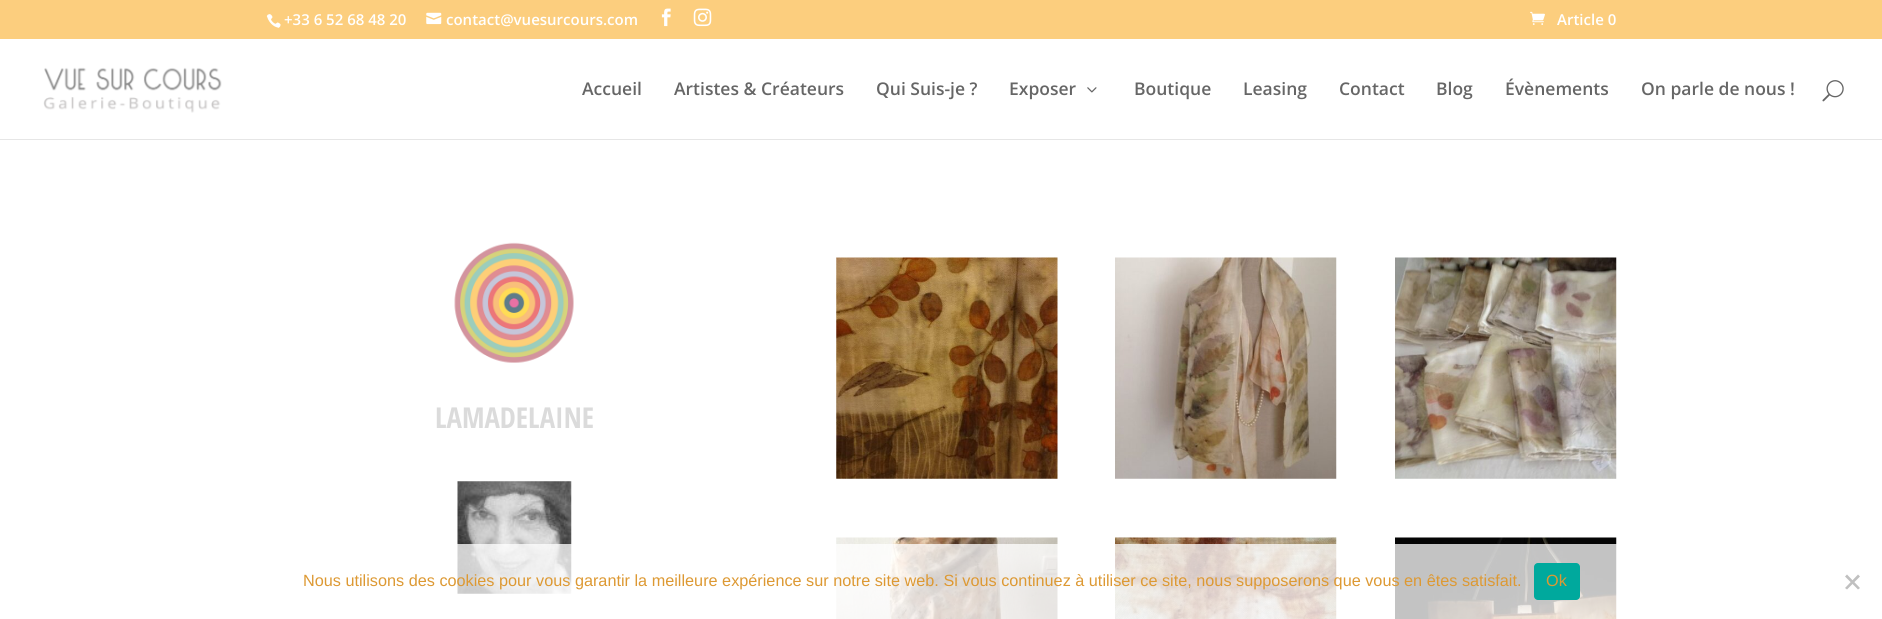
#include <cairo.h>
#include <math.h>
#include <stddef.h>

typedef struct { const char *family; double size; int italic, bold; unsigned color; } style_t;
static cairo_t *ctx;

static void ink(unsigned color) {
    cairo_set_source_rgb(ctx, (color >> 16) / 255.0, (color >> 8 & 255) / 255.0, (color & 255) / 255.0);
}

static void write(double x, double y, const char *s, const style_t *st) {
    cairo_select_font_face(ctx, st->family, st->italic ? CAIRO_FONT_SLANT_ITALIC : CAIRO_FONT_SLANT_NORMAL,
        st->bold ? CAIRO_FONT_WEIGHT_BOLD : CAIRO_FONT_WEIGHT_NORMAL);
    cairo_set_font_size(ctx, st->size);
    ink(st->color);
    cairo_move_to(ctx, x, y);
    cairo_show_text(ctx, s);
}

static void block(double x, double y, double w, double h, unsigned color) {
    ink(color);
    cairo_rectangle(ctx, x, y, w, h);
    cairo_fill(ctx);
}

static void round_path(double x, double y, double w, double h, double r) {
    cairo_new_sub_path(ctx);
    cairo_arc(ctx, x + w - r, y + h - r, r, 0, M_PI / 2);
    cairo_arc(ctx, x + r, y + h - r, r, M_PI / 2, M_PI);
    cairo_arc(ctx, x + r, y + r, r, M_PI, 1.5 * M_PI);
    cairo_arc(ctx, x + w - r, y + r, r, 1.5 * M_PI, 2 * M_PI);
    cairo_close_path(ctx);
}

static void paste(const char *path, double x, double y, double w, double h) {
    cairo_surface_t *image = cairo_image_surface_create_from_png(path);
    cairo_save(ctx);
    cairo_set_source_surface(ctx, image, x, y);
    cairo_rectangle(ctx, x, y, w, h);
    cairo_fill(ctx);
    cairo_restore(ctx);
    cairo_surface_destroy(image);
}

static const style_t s1 = {"Open Sans SemiBold", 15, 0, 0, 0xffffff};
static const style_t s2 = {"Open Sans SemiBold", 17.5, 0, 0, 0x666666};
static const style_t s3 = {"Open Sans Condensed", 28.75, 0, 1, 0xdbdbdb};
static const style_t s4 = {"Liberation Sans", 16.25, 0, 0, 0xdd9933};

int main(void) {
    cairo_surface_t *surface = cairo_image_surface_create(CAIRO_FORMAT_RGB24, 1882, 619);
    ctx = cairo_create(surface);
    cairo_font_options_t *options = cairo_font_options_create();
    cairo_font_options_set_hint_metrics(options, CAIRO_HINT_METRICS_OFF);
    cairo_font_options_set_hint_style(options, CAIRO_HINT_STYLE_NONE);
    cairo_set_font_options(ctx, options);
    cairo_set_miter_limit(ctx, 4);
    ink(0xffffff);
    cairo_paint(ctx);
    block(0, 0, 1882, 39, 0xfcce7e);
    paste("pic1.png", 266, 14, 15, 14);
    write(284, 25, "+33 6 52 68 48 20", &s1);
    paste("pic2.png", 426, 12, 16, 13);
    write(446, 25, "contact@vuesurcours.com", &s1);
    paste("pic3.png", 661, 8, 10, 19);
    paste("pic4.png", 693, 8, 19, 19);
    paste("pic5.png", 1530, 11, 15, 14);
    write(1557, 25, "Article 0", &s1);
    ink(0xe6e6e6);
    cairo_new_path(ctx);
    cairo_move_to(ctx, 0, 139);
    cairo_line_to(ctx, 0, 140);
    cairo_line_to(ctx, 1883, 140);
    cairo_line_to(ctx, 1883, 40);
    cairo_line_to(ctx, 1882, 40);
    cairo_line_to(ctx, 1882, 139);
    cairo_close_path(ctx);
    cairo_fill(ctx);
    paste("pic6.png", 43, 67, 179, 46);
    write(582, 95, "Accueil", &s2);
    write(674, 95, "Artistes & Créateurs", &s2);
    write(876, 95, "Qui Suis-je ?", &s2);
    write(1009, 95, "Exposer", &s2);
    paste("pic7.png", 1087, 87, 10, 6);
    write(1134, 95, "Boutique", &s2);
    write(1243, 95, "Leasing", &s2);
    write(1339, 95, "Contact", &s2);
    write(1436, 95, "Blog", &s2);
    write(1505, 95, "Évènements", &s2);
    write(1641, 95, "On parle de nous !", &s2);
    paste("pic8.png", 1822, 80, 22, 22);
    paste("pic9.png", 454, 242, 120, 121);
    write(435, 428, "LAMADELAINE", &s3);
    paste("pic10.png", 457, 481, 115, 113);
    paste("pic11.png", 836, 257, 222, 222);
    paste("pic12.png", 1115, 257, 222, 222);
    paste("pic13.png", 1395, 257, 222, 222);
    paste("pic14.png", 836, 537, 222, 82);
    paste("pic15.png", 1115, 537, 222, 82);
    paste("pic16.png", 1395, 537, 222, 82);
    cairo_set_source_rgba(ctx, 1, 1, 1, 0.76);
    cairo_rectangle(ctx, 457, 544, 1160, 75);
    cairo_fill(ctx);
    write(303, 586, "Nous utilisons des cookies pour vous garantir la meilleure expérience sur notre site web. Si vous continuez à utiliser ce site, nous supposerons que vous en êtes satisfait.", &s4);
    ink(0x00a99d);
    round_path(1534, 563, 46, 37, 4);
    cairo_fill(ctx);
    write(1546, 586, "Ok", &s4);
    ink(0xc0c0c0);
    cairo_new_path(ctx);
    cairo_move_to(ctx, 1858, 574.5);
    cairo_line_to(ctx, 1860, 576.5);
    cairo_line_to(ctx, 1847, 589.5);
    cairo_line_to(ctx, 1845, 588);
    cairo_close_path(ctx);
    cairo_fill(ctx);
    cairo_new_path(ctx);
    cairo_move_to(ctx, 1845, 576.5);
    cairo_line_to(ctx, 1847, 574.5);
    cairo_line_to(ctx, 1860, 588);
    cairo_line_to(ctx, 1858, 589.5);
    cairo_close_path(ctx);
    cairo_fill(ctx);
    cairo_surface_write_to_png(surface, "screenshot.png");
    cairo_font_options_destroy(options);
    cairo_destroy(ctx);
    cairo_surface_destroy(surface);
    return 0;
}
